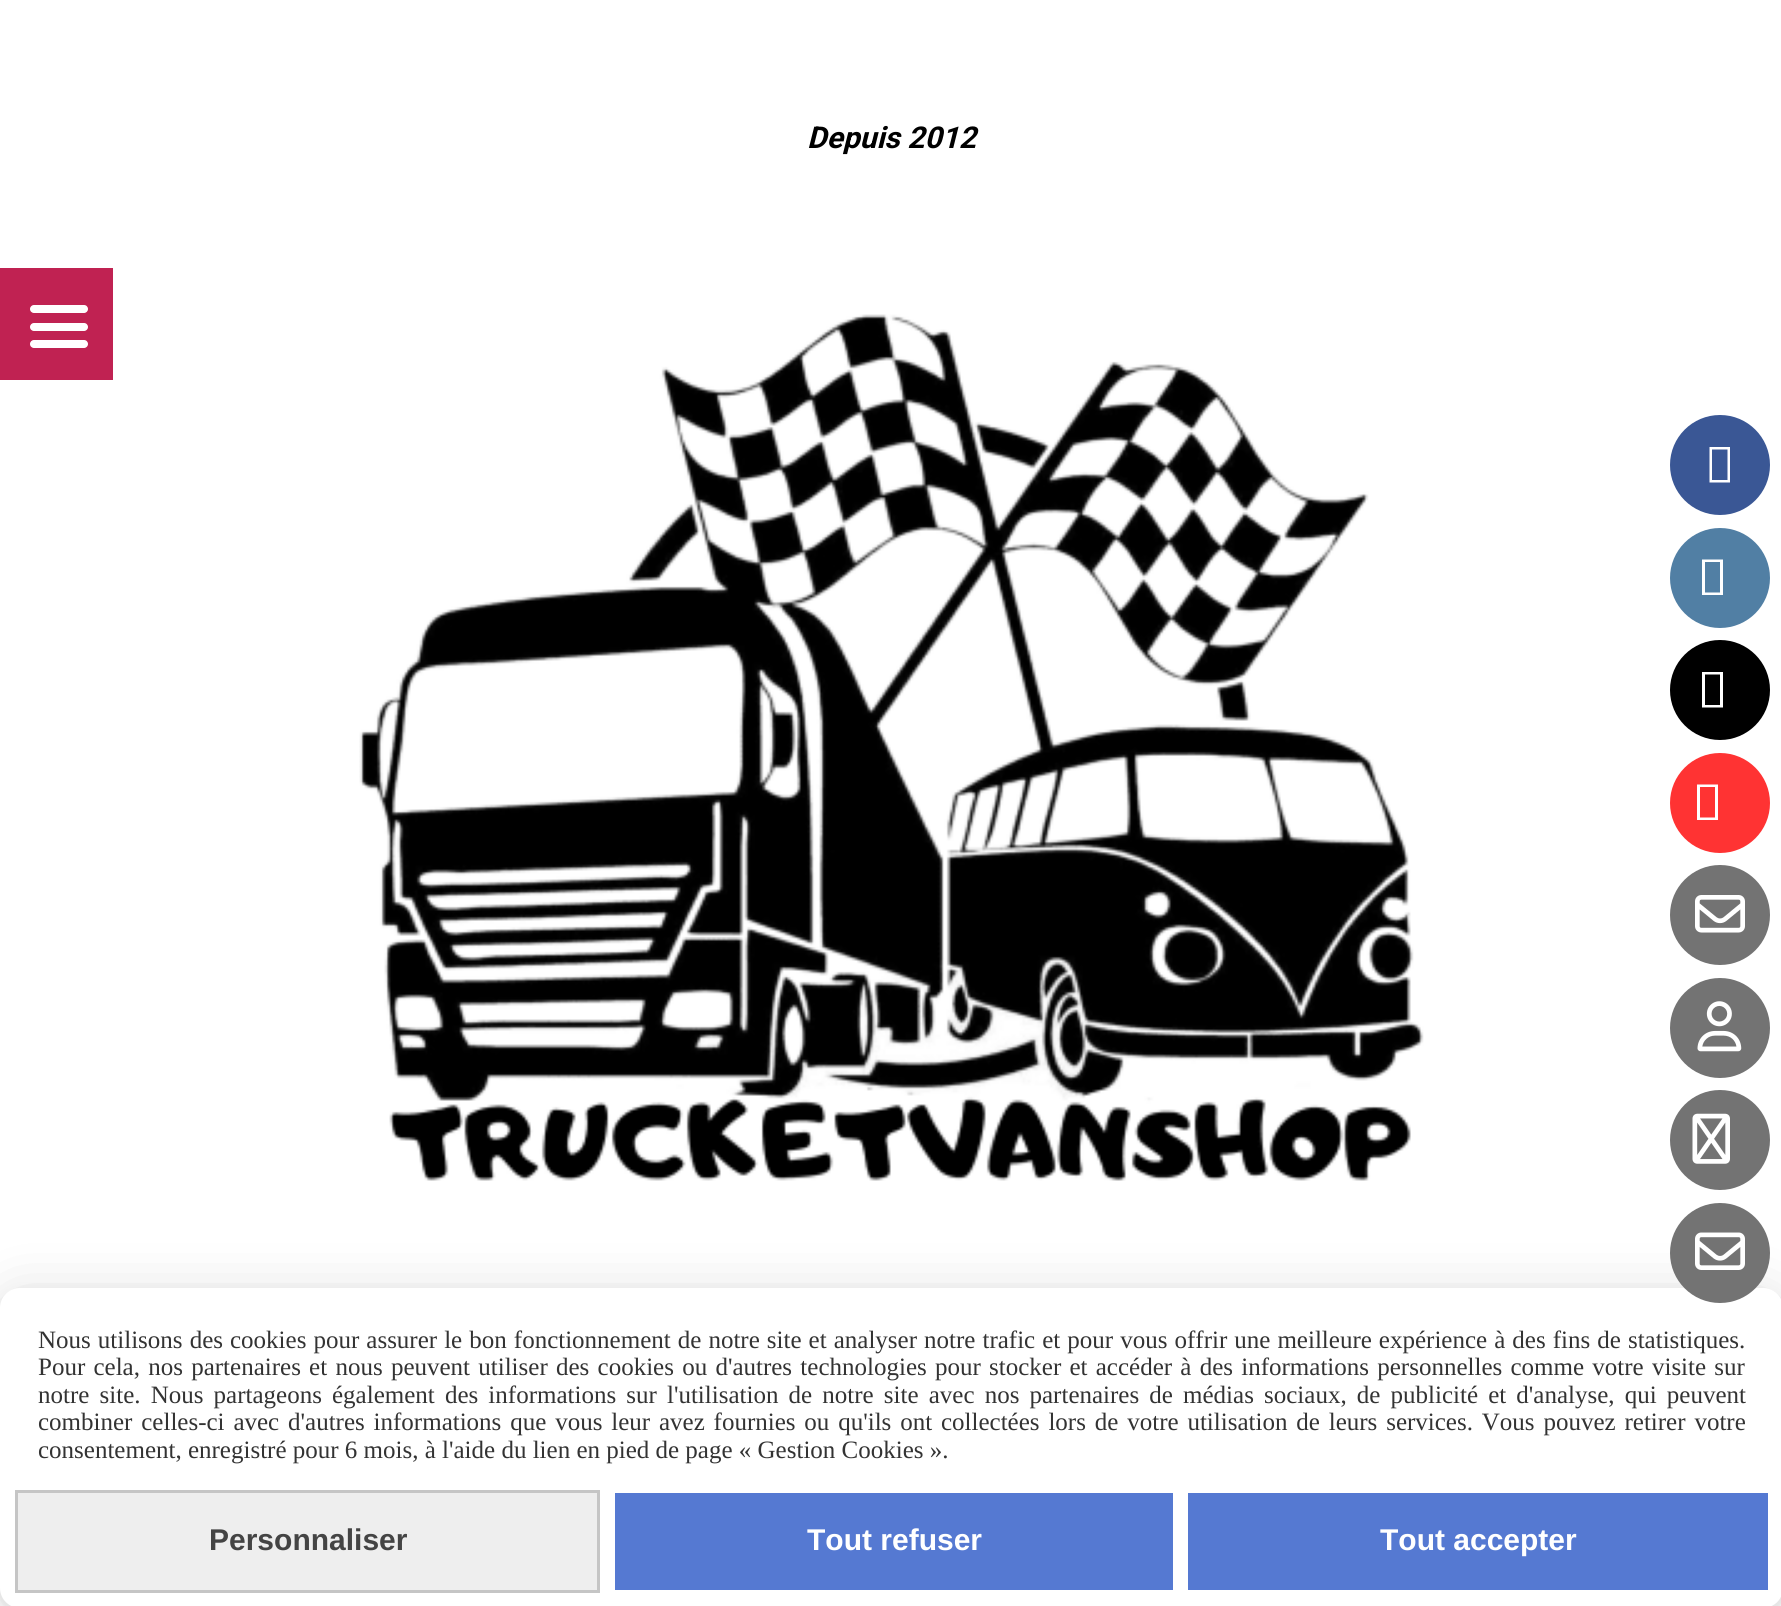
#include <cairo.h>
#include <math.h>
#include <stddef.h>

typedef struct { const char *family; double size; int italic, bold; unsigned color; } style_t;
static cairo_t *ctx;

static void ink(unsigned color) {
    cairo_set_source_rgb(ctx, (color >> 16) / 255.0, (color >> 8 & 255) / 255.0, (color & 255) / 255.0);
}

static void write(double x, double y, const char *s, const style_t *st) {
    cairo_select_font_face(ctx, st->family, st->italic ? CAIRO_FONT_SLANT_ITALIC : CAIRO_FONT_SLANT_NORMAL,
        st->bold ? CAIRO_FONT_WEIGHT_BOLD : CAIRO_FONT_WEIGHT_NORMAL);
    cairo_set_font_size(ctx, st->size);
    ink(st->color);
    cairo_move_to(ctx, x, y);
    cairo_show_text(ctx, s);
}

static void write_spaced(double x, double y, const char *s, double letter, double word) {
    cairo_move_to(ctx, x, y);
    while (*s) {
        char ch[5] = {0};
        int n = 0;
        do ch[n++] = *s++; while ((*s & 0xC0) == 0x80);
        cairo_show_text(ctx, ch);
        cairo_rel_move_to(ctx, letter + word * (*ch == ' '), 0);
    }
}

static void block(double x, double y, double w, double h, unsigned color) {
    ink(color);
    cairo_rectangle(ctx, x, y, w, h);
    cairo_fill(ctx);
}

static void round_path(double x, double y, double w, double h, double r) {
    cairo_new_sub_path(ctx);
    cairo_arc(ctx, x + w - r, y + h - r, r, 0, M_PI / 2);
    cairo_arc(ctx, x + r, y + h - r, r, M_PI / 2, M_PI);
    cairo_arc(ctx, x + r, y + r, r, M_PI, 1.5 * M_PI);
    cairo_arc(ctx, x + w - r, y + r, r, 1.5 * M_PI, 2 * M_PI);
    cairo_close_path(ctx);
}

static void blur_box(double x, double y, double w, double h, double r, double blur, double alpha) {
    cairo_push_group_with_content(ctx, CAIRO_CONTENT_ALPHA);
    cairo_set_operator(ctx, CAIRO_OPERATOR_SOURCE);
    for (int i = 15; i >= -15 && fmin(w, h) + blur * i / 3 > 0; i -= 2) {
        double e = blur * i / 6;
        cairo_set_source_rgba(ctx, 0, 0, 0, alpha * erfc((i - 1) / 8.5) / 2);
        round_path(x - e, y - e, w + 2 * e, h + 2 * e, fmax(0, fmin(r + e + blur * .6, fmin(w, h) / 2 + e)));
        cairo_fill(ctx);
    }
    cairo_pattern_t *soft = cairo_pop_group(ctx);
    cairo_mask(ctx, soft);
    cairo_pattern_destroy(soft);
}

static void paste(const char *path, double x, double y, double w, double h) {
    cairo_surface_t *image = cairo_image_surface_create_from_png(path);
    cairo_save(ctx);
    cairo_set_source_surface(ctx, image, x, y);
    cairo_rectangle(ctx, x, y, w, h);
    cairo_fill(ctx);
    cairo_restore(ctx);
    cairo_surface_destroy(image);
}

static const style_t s1 = {"Roboto", 30, 1, 1, 0x000000};
static const style_t s2 = {"Liberation Serif", 25, 0, 0, 0x333333};
static const style_t s3 = {"Liberation Sans", 30, 0, 1, 0x444444};
static const style_t s4 = {"Liberation Sans", 30, 0, 1, 0xffffff};

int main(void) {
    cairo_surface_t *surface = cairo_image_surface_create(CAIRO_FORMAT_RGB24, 1781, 1606);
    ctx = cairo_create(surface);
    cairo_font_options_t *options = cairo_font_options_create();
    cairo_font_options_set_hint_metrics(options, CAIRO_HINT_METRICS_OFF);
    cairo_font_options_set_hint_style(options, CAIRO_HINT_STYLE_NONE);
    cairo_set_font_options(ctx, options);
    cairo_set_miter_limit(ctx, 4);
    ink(0xffffff);
    cairo_paint(ctx);
    write(807, 148, "Depuis 2012", &s1);
    block(0, 268, 113, 112, 0xc02252);
    ink(0xffffff);
    round_path(30, 305, 58, 8, 4);
    cairo_fill(ctx);
    round_path(30, 323, 58, 8, 4);
    cairo_fill(ctx);
    round_path(30, 340, 58, 8, 4);
    cairo_fill(ctx);
    paste("pic1.png", 359, 314, 1065, 867);
    ink(0x3a5795);
    cairo_arc(ctx, 1720, 465, 50, 0, 2 * M_PI);
    cairo_fill(ctx);
    ink(0xffffff);
    cairo_new_path(ctx);
    cairo_move_to(ctx, 1709.5, 482.5);
    cairo_line_to(ctx, 1709.5, 447);
    cairo_line_to(ctx, 1730, 447);
    cairo_line_to(ctx, 1730, 482.5);
    cairo_close_path(ctx);
    cairo_move_to(ctx, 1712, 480);
    cairo_line_to(ctx, 1727.5, 480);
    cairo_line_to(ctx, 1727.5, 449.5);
    cairo_line_to(ctx, 1712, 449.5);
    cairo_close_path(ctx);
    cairo_fill(ctx);
    ink(0x517fa4);
    cairo_arc(ctx, 1720, 578, 50, 0, 2 * M_PI);
    cairo_fill(ctx);
    ink(0xffffff);
    cairo_new_path(ctx);
    cairo_move_to(ctx, 1702, 595);
    cairo_line_to(ctx, 1702, 559.5);
    cairo_line_to(ctx, 1723, 559.5);
    cairo_line_to(ctx, 1723, 595);
    cairo_close_path(ctx);
    cairo_move_to(ctx, 1705, 592.5);
    cairo_line_to(ctx, 1720, 592.5);
    cairo_line_to(ctx, 1720, 562);
    cairo_line_to(ctx, 1705, 562);
    cairo_close_path(ctx);
    cairo_fill(ctx);
    ink(0x000000);
    cairo_arc(ctx, 1720, 690, 50, 0, 2 * M_PI);
    cairo_fill(ctx);
    ink(0xffffff);
    cairo_new_path(ctx);
    cairo_move_to(ctx, 1702, 707.5);
    cairo_line_to(ctx, 1702, 672);
    cairo_line_to(ctx, 1723, 672);
    cairo_line_to(ctx, 1723, 707.5);
    cairo_close_path(ctx);
    cairo_move_to(ctx, 1705, 705);
    cairo_line_to(ctx, 1720, 705);
    cairo_line_to(ctx, 1720, 674.5);
    cairo_line_to(ctx, 1705, 674.5);
    cairo_close_path(ctx);
    cairo_fill(ctx);
    ink(0xff3333);
    cairo_arc(ctx, 1720, 803, 50, 0, 2 * M_PI);
    cairo_fill(ctx);
    ink(0xffffff);
    cairo_new_path(ctx);
    cairo_move_to(ctx, 1697, 820);
    cairo_line_to(ctx, 1697, 784.5);
    cairo_line_to(ctx, 1718, 784.5);
    cairo_line_to(ctx, 1718, 820);
    cairo_close_path(ctx);
    cairo_move_to(ctx, 1700, 817.5);
    cairo_line_to(ctx, 1715, 817.5);
    cairo_line_to(ctx, 1715, 787);
    cairo_line_to(ctx, 1700, 787);
    cairo_close_path(ctx);
    cairo_fill(ctx);
    ink(0x737373);
    cairo_arc(ctx, 1720, 915, 50, 0, 2 * M_PI);
    cairo_fill(ctx);
    paste("pic2.png", 1695, 895, 50, 38);
    cairo_arc(ctx, 1720, 1028, 50, 0, 2 * M_PI);
    cairo_fill(ctx);
    paste("pic3.png", 1697, 1001, 45, 51);
    cairo_arc(ctx, 1720, 1140, 50, 0, 2 * M_PI);
    cairo_fill(ctx);
    paste("pic4.png", 1692, 1113, 38, 51);
    ink(0x000000);
    blur_box(0, 1293, 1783, 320, 20, 7.5, 0.05);
    blur_box(0, 1298, 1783, 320, 20, 30, 0.15);
    ink(0xffffff);
    round_path(0, 1288, 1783, 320, 20);
    cairo_fill(ctx);
    ink(0x737373);
    cairo_arc(ctx, 1720, 1253, 50, 0, 2 * M_PI);
    cairo_fill(ctx);
    paste("pic5.png", 1695, 1232, 50, 38);
    cairo_select_font_face(ctx, "Liberation Serif", CAIRO_FONT_SLANT_NORMAL, CAIRO_FONT_WEIGHT_NORMAL);
    cairo_set_font_size(ctx, 25);
    ink(0x333333);
    write_spaced(38, 1348, "Nous utilisons des cookies pour assurer le bon fonctionnement de notre site et analyser notre trafic et pour vous offrir une meilleure expérience à des fins de statistiques.", 0, 0.8);
    write_spaced(38, 1375, "Pour cela, nos partenaires et nous peuvent utiliser des cookies ou d'autres technologies pour stocker et accéder à des informations personnelles comme votre visite sur", 0, 2);
    write_spaced(38, 1403, "notre site. Nous partageons également des informations sur l'utilisation de notre site avec nos partenaires de médias sociaux, de publicité et d'analyse, qui peuvent", 0, 3.9);
    write_spaced(38, 1430, "combiner celles-ci avec d'autres informations que vous leur avez fournies ou qu'ils ont collectées lors de votre utilisation de leurs services. Vous pouvez retirer votre", 0, 2.6);
    write(38, 1458, "consentement, enregistré pour 6 mois, à l'aide du lien en pied de page « Gestion Cookies ».", &s2);
    ink(0xeeeeee);
    cairo_rectangle(ctx, 16.5, 1491.5, 582, 100);
    cairo_fill_preserve(ctx);
    ink(0xc5c5c5);
    cairo_set_line_width(ctx, 3);
    cairo_stroke(ctx);
    write(209, 1550, "Personnaliser", &s3);
    block(615, 1493, 558, 97, 0x5579d2);
    write(807, 1550, "Tout refuser", &s4);
    block(1188, 1493, 580, 97, 0x5579d2);
    write(1380, 1550, "Tout accepter", &s4);
    cairo_surface_write_to_png(surface, "screenshot.png");
    cairo_font_options_destroy(options);
    cairo_destroy(ctx);
    cairo_surface_destroy(surface);
    return 0;
}
